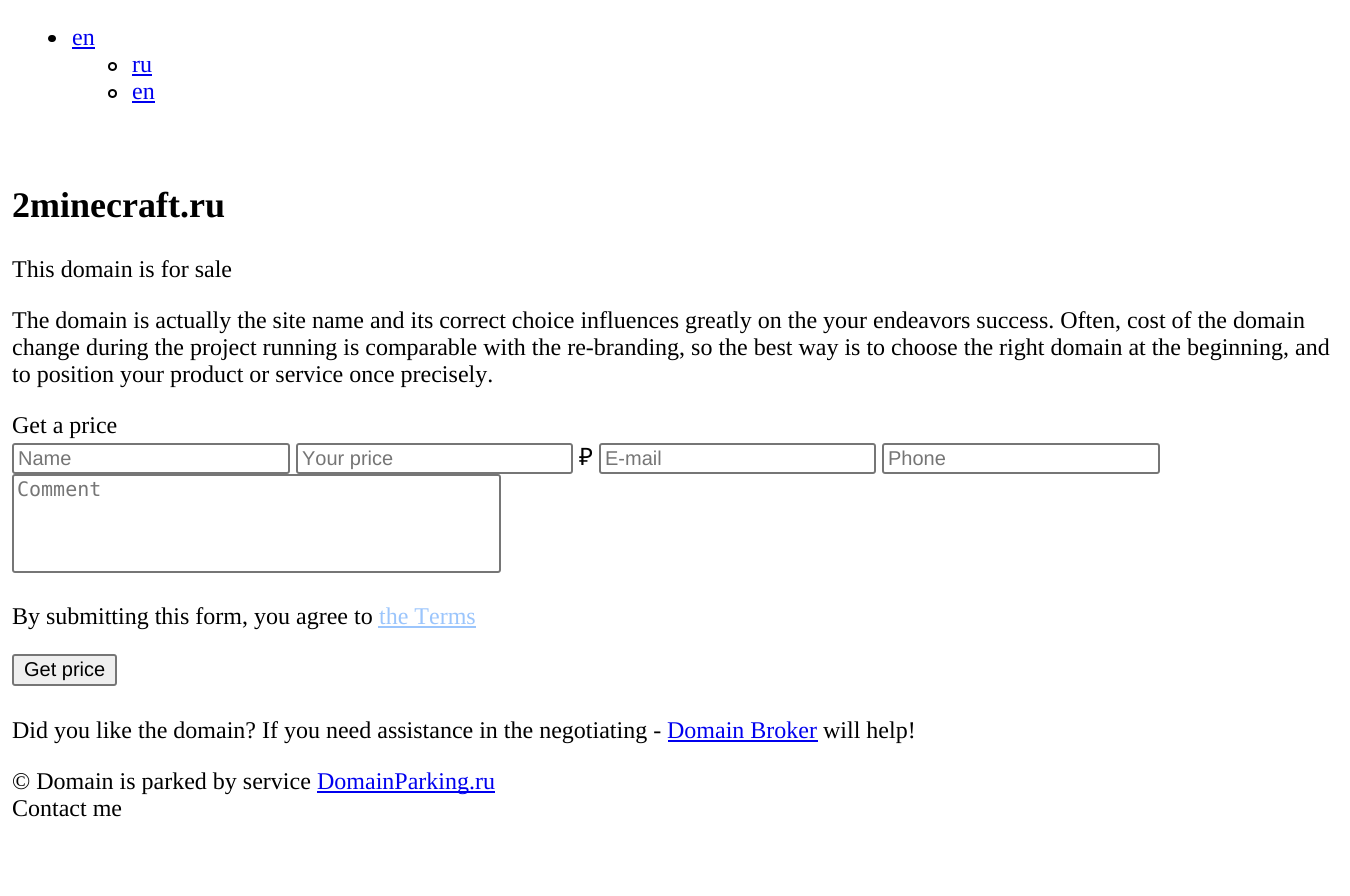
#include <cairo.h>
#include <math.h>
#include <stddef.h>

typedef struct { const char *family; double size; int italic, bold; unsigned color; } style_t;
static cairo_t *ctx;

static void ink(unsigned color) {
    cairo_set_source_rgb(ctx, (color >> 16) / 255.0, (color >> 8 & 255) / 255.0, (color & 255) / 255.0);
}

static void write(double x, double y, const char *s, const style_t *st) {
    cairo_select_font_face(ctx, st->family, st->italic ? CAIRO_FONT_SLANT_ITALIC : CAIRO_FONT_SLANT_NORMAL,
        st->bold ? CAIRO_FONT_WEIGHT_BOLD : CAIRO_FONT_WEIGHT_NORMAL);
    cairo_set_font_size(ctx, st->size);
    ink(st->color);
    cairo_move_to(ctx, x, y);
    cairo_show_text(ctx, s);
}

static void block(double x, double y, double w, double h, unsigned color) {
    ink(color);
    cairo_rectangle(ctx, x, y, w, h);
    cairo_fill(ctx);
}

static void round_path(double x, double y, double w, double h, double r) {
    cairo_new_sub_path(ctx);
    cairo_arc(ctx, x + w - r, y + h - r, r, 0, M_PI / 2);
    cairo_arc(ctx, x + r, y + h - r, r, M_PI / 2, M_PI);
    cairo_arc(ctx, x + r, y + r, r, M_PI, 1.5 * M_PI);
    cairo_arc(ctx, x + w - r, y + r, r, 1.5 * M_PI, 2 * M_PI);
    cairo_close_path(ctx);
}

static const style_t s1 = {"Liberation Serif", 24, 0, 0, 0x0000ee};
static const style_t s2 = {"Liberation Serif", 36, 0, 1, 0x000000};
static const style_t s3 = {"Liberation Serif", 24, 0, 0, 0x000000};
static const style_t s4 = {"Liberation Sans", 20, 0, 0, 0x757575};
static const style_t s5 = {"Noto Sans", 24, 0, 0, 0x000000};
static const style_t s6 = {"DejaVu Sans Mono", 20, 0, 0, 0x757575};
static const style_t s7 = {"Liberation Serif", 24, 0, 0, 0x9bc5fc};
static const style_t s8 = {"Liberation Sans", 20, 0, 0, 0x000000};

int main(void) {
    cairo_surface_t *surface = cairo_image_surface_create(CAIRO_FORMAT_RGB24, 1350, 896);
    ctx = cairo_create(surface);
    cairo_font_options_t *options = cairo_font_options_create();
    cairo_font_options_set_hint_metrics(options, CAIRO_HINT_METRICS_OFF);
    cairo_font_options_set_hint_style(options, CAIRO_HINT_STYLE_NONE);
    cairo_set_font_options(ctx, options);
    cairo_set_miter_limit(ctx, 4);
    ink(0xffffff);
    cairo_paint(ctx);
    ink(0x000000);
    round_path(48, 35, 8, 7, 3.5);
    cairo_fill(ctx);
    write(72, 45, "en", &s1);
    block(72, 47, 23, 2, 0x0000ee);
    cairo_new_path(ctx);
    cairo_arc(ctx, 112.5, 66.5, 3.5, 0, 2 * M_PI);
    ink(0x000000);
    cairo_stroke(ctx);
    write(132, 72, "ru", &s1);
    block(132, 74, 20, 2, 0x0000ee);
    cairo_new_path(ctx);
    cairo_arc(ctx, 112.5, 93.5, 3.5, 0, 2 * M_PI);
    ink(0x000000);
    cairo_stroke(ctx);
    write(132, 99, "en", &s1);
    block(132, 101, 23, 2, 0x0000ee);
    write(12, 217, "2minecraft.ru", &s2);
    write(12, 277, "This domain is for sale", &s3);
    write(12, 328, "The domain is actually the site name and its correct choice influences greatly on the your endeavors success. Often, cost of the domain", &s3);
    write(12, 355, "change during the project running is comparable with the re-branding, so the best way is to choose the right domain at the beginning, and", &s3);
    write(12, 382, "to position your product or service once precisely.", &s3);
    write(12, 433, "Get a price", &s3);
    round_path(13, 444, 276, 29, 2);
    ink(0x767676);
    cairo_stroke(ctx);
    write(18, 465, "Name", &s4);
    round_path(297, 444, 275, 29, 2);
    ink(0x767676);
    cairo_stroke(ctx);
    write(302, 465, "Your price", &s4);
    write(579, 465, "₽", &s5);
    round_path(600, 444, 275, 29, 2);
    ink(0x767676);
    cairo_stroke(ctx);
    write(605, 465, "E-mail", &s4);
    round_path(883, 444, 276, 29, 2);
    ink(0x767676);
    cairo_stroke(ctx);
    write(888, 465, "Phone", &s4);
    round_path(13, 475, 487, 97, 2);
    ink(0x767676);
    cairo_stroke(ctx);
    write(17, 496, "Comment", &s6);
    write(12, 624, "By submitting this form, you agree to", &s3);
    write(379, 624, "the Terms", &s7);
    block(378, 626, 98, 2, 0x9bc5fc);
    ink(0xefefef);
    round_path(13, 655, 103, 30, 2);
    cairo_fill_preserve(ctx);
    ink(0x767676);
    cairo_stroke(ctx);
    write(24, 676, "Get price", &s8);
    write(12, 738, "Did you like the domain? If you need assistance in the negotiating -", &s3);
    write(667, 738, "Domain Broker", &s1);
    block(668, 740, 150, 2, 0x0000ee);
    write(823, 738, "will help!", &s3);
    write(12, 789, "© Domain is parked by service", &s3);
    block(317, 791, 178, 2, 0x0000ee);
    write(317, 789, "DomainParking.ru", &s1);
    write(12, 816, "Contact me", &s3);
    cairo_surface_write_to_png(surface, "screenshot.png");
    cairo_font_options_destroy(options);
    cairo_destroy(ctx);
    cairo_surface_destroy(surface);
    return 0;
}
